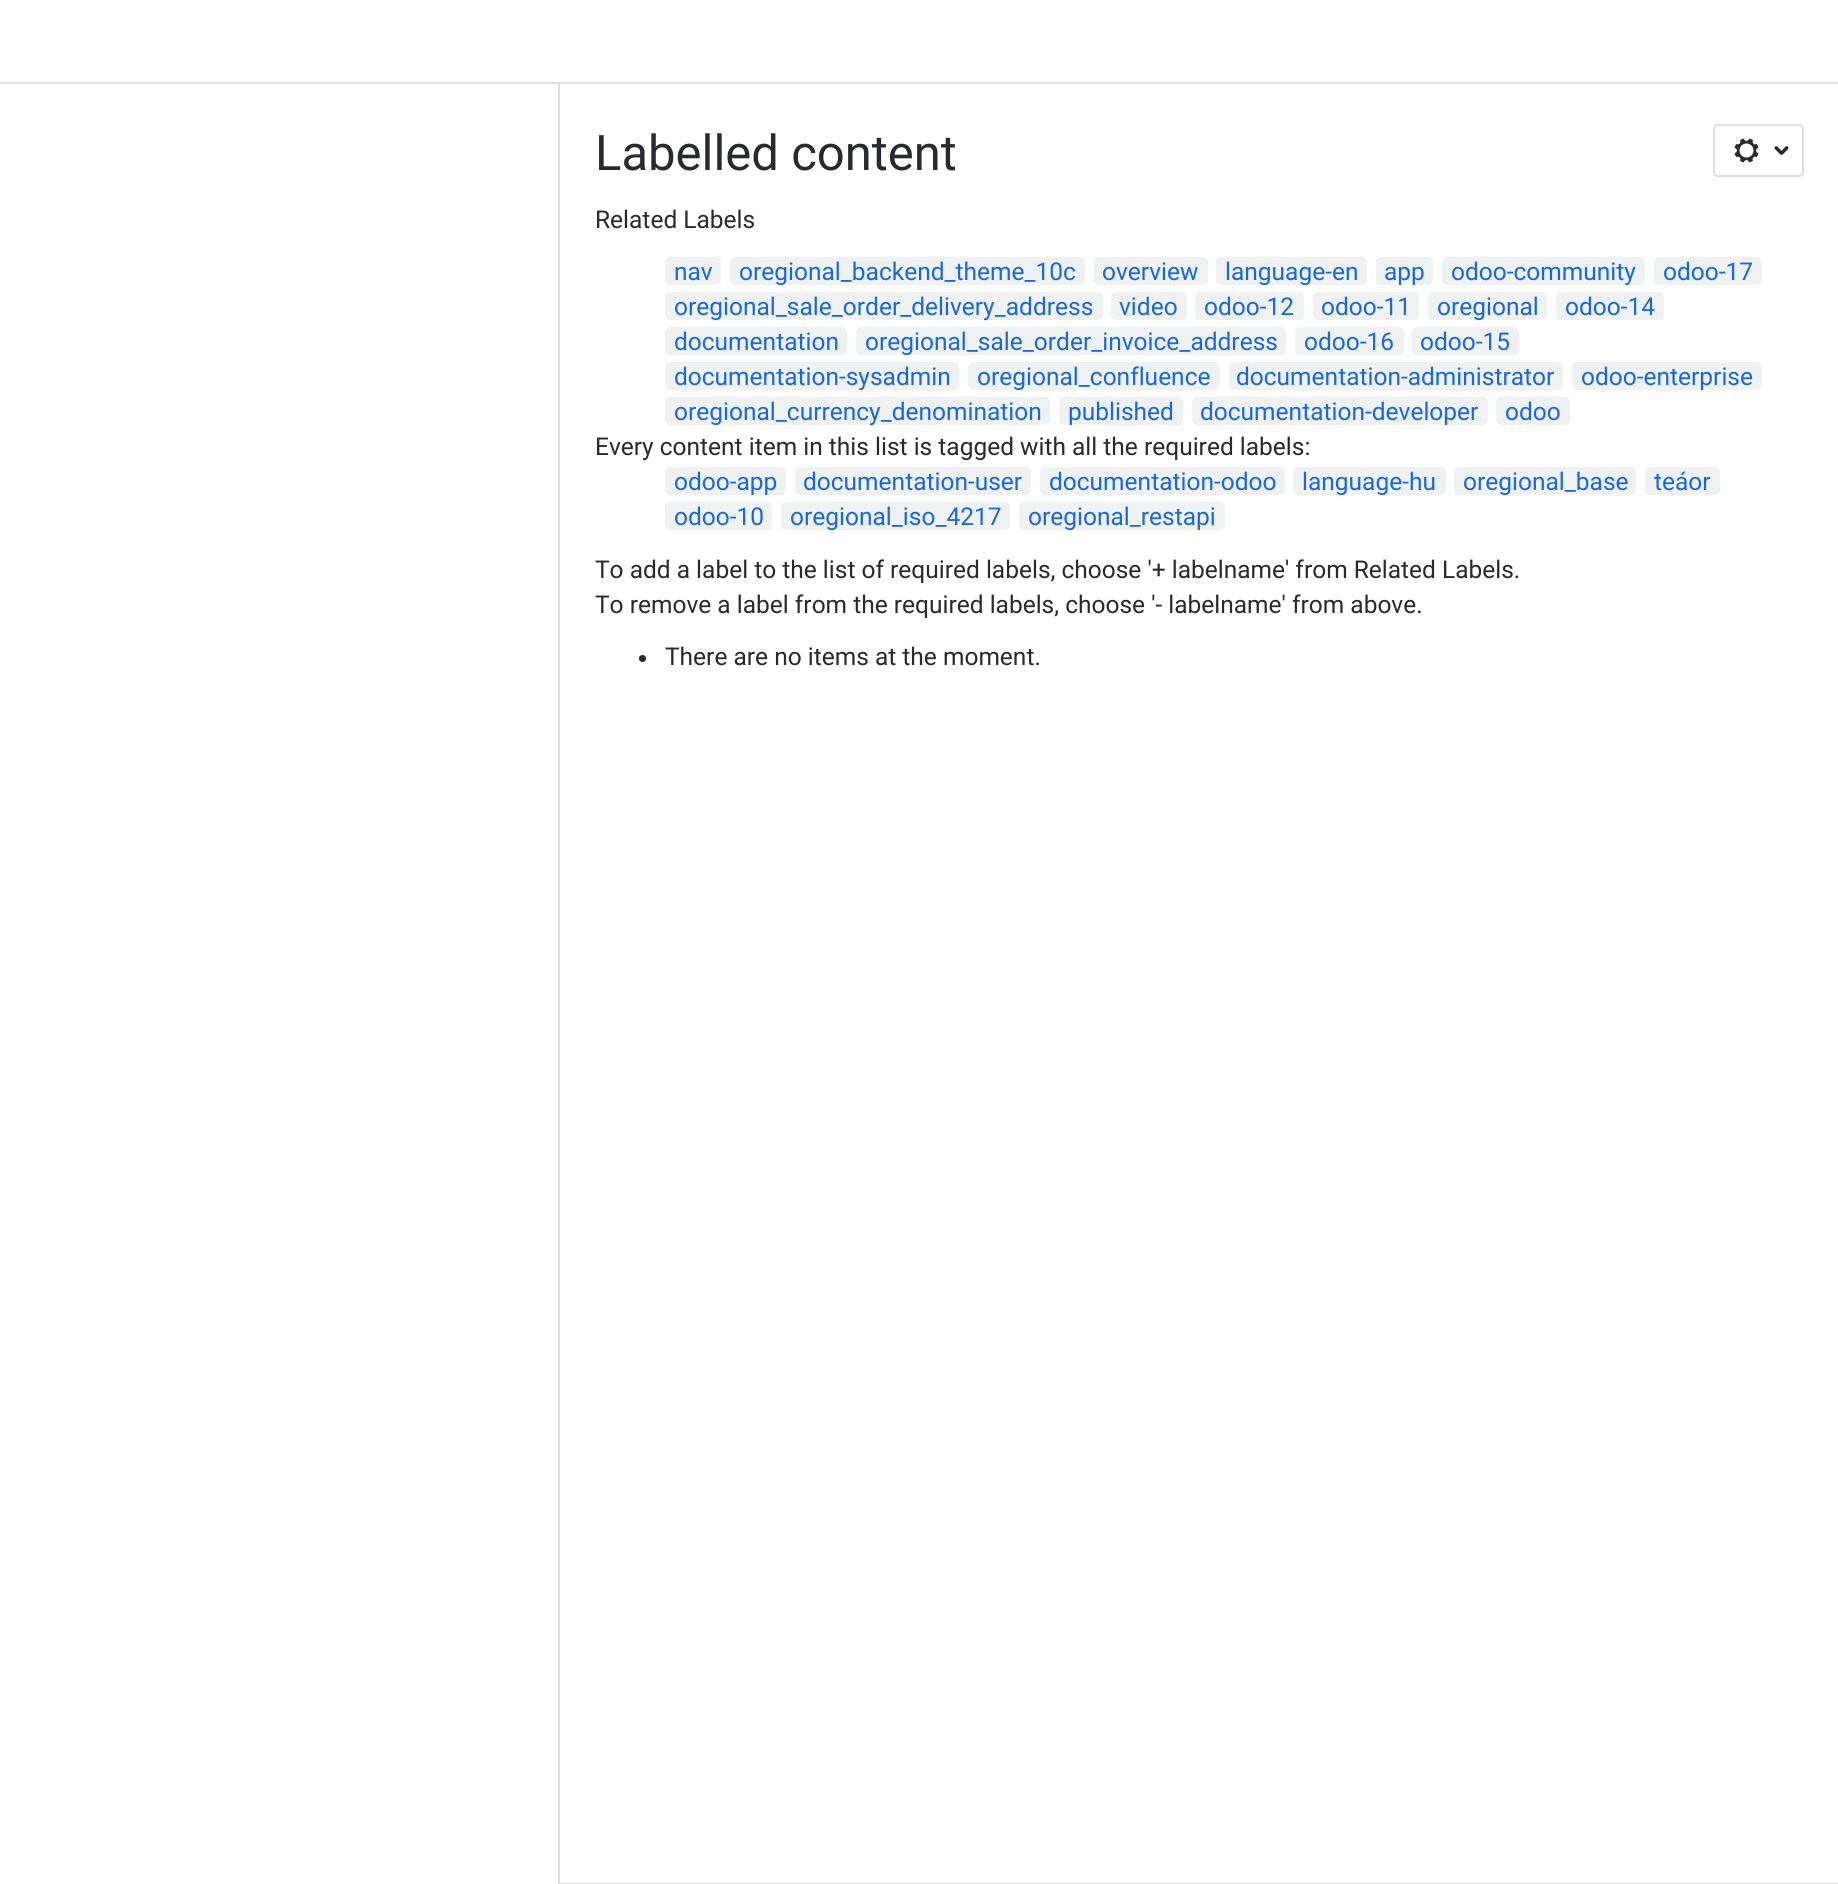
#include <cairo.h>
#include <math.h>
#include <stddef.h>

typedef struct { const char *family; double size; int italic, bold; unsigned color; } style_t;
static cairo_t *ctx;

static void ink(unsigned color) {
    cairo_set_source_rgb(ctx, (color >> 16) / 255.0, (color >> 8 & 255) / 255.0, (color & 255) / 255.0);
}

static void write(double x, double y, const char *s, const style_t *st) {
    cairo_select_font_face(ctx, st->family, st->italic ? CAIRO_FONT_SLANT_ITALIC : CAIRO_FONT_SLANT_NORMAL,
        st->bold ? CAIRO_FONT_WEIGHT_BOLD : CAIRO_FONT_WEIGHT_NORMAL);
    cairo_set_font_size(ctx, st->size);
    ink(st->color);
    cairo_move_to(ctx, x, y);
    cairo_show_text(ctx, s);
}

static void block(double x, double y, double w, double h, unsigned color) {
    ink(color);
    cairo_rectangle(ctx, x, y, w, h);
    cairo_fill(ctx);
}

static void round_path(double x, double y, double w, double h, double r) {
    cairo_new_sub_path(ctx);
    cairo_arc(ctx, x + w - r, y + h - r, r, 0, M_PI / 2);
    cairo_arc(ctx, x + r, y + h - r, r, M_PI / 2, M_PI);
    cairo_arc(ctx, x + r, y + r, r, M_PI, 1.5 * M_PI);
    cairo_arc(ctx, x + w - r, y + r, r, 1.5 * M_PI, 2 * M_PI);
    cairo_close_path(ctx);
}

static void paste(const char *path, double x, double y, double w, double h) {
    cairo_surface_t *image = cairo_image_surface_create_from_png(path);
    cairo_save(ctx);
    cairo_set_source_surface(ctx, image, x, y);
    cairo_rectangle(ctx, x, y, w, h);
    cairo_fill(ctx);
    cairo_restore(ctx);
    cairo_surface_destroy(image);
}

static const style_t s1 = {"Roboto", 49, 0, 0, 0x292a2e};
static const style_t s2 = {"Roboto", 24.5, 0, 0, 0x292a2e};
static const style_t s3 = {"Roboto", 24.5, 0, 0, 0x1868db};

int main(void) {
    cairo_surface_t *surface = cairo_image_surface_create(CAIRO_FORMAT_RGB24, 1838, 1884);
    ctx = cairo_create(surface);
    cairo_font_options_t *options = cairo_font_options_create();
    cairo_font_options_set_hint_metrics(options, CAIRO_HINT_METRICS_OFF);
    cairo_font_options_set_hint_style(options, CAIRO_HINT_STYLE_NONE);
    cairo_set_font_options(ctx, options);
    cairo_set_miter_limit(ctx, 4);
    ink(0xffffff);
    cairo_paint(ctx);
    block(0, 82, 1838, 2, 0xdddedd);
    block(558, 84, 2, 1800, 0xdddedd);
    block(560, 1883, 1278, 1, 0xdddedd);
    write(595, 170, "Labelled content", &s1);
    round_path(1714, 125, 89, 51, 4);
    ink(0xdddedd);
    cairo_stroke(ctx);
    paste("pic1.png", 1734, 138, 25, 25);
    paste("pic2.png", 1774, 146, 15, 9);
    write(595, 228, "Related Labels", &s2);
    ink(0xf0f1f2);
    round_path(665, 257, 56, 28, 5);
    cairo_fill(ctx);
    write(674, 280, "nav", &s3);
    ink(0xf0f1f2);
    round_path(730, 257, 355, 28, 5);
    cairo_fill(ctx);
    write(739, 280, "oregional_backend_theme_10c", &s3);
    ink(0xf0f1f2);
    round_path(1094, 257, 114, 28, 5);
    cairo_fill(ctx);
    write(1102, 280, "overview", &s3);
    ink(0xf0f1f2);
    round_path(1216, 257, 151, 28, 5);
    cairo_fill(ctx);
    write(1225, 280, "language-en", &s3);
    ink(0xf0f1f2);
    round_path(1376, 257, 57, 28, 5);
    cairo_fill(ctx);
    write(1384, 280, "app", &s3);
    ink(0xf0f1f2);
    round_path(1442, 257, 203, 28, 5);
    cairo_fill(ctx);
    write(1451, 280, "odoo-community", &s3);
    ink(0xf0f1f2);
    round_path(1654, 257, 108, 28, 5);
    cairo_fill(ctx);
    write(1663, 280, "odoo-17", &s3);
    ink(0xf0f1f2);
    round_path(665, 292, 438, 28, 5);
    cairo_fill(ctx);
    write(674, 315, "oregional_sale_order_delivery_address", &s3);
    ink(0xf0f1f2);
    round_path(1111, 292, 76, 28, 5);
    cairo_fill(ctx);
    write(1119, 315, "video", &s3);
    ink(0xf0f1f2);
    round_path(1195, 292, 109, 28, 5);
    cairo_fill(ctx);
    write(1204, 315, "odoo-12", &s3);
    ink(0xf0f1f2);
    round_path(1313, 292, 106, 28, 5);
    cairo_fill(ctx);
    write(1321, 315, "odoo-11", &s3);
    ink(0xf0f1f2);
    round_path(1428, 292, 119, 28, 5);
    cairo_fill(ctx);
    write(1437, 315, "oregional", &s3);
    ink(0xf0f1f2);
    round_path(1556, 292, 108, 28, 5);
    cairo_fill(ctx);
    write(1565, 315, "odoo-14", &s3);
    ink(0xf0f1f2);
    round_path(665, 327, 182, 28, 5);
    cairo_fill(ctx);
    write(674, 350, "documentation", &s3);
    ink(0xf0f1f2);
    round_path(856, 327, 430, 28, 5);
    cairo_fill(ctx);
    write(865, 350, "oregional_sale_order_invoice_address", &s3);
    ink(0xf0f1f2);
    round_path(1295, 327, 109, 28, 5);
    cairo_fill(ctx);
    write(1304, 350, "odoo-16", &s3);
    ink(0xf0f1f2);
    round_path(1412, 327, 107, 28, 5);
    cairo_fill(ctx);
    write(1420, 350, "odoo-15", &s3);
    ink(0xf0f1f2);
    round_path(665, 362, 294, 28, 5);
    cairo_fill(ctx);
    write(674, 385, "documentation-sysadmin", &s3);
    ink(0xf0f1f2);
    round_path(968, 362, 252, 28, 5);
    cairo_fill(ctx);
    write(977, 385, "oregional_confluence", &s3);
    ink(0xf0f1f2);
    round_path(1229, 362, 334, 28, 5);
    cairo_fill(ctx);
    write(1236, 385, "documentation-administrator", &s3);
    ink(0xf0f1f2);
    round_path(1572, 362, 190, 28, 5);
    cairo_fill(ctx);
    write(1581, 385, "odoo-enterprise", &s3);
    ink(0xf0f1f2);
    round_path(665, 397, 385, 28, 5);
    cairo_fill(ctx);
    write(674, 420, "oregional_currency_denomination", &s3);
    ink(0xf0f1f2);
    round_path(1059, 397, 124, 28, 5);
    cairo_fill(ctx);
    write(1068, 420, "published", &s3);
    ink(0xf0f1f2);
    round_path(1192, 397, 296, 28, 5);
    cairo_fill(ctx);
    write(1200, 420, "documentation-developer", &s3);
    ink(0xf0f1f2);
    round_path(1496, 397, 74, 28, 5);
    cairo_fill(ctx);
    write(1505, 420, "odoo", &s3);
    write(595, 455, "Every content item in this list is tagged with all the required labels:", &s2);
    ink(0xf0f1f2);
    round_path(665, 467, 121, 28, 5);
    cairo_fill(ctx);
    write(674, 490, "odoo-app", &s3);
    ink(0xf0f1f2);
    round_path(795, 467, 236, 28, 5);
    cairo_fill(ctx);
    write(803, 490, "documentation-user", &s3);
    ink(0xf0f1f2);
    round_path(1040, 467, 245, 28, 5);
    cairo_fill(ctx);
    write(1049, 490, "documentation-odoo", &s3);
    ink(0xf0f1f2);
    round_path(1293, 467, 153, 28, 5);
    cairo_fill(ctx);
    write(1302, 490, "language-hu", &s3);
    ink(0xf0f1f2);
    round_path(1454, 467, 182, 28, 5);
    cairo_fill(ctx);
    write(1463, 490, "oregional_base", &s3);
    ink(0xf0f1f2);
    round_path(1645, 467, 75, 28, 5);
    cairo_fill(ctx);
    write(1654, 490, "teáor", &s3);
    ink(0xf0f1f2);
    round_path(665, 502, 107, 28, 5);
    cairo_fill(ctx);
    write(674, 525, "odoo-10", &s3);
    ink(0xf0f1f2);
    round_path(781, 502, 229, 28, 5);
    cairo_fill(ctx);
    write(790, 525, "oregional_iso_4217", &s3);
    ink(0xf0f1f2);
    round_path(1019, 502, 206, 28, 5);
    cairo_fill(ctx);
    write(1028, 525, "oregional_restapi", &s3);
    write(595, 578, "To add a label to the list of required labels, choose '+ labelname' from Related Labels.", &s2);
    write(595, 613, "To remove a label from the required labels, choose '- labelname' from above.", &s2);
    cairo_new_path(ctx);
    cairo_arc(ctx, 642.5, 658.5, 3.5, 0, 2 * M_PI);
    cairo_fill(ctx);
    write(665, 665, "There are no items at the moment.", &s2);
    cairo_surface_write_to_png(surface, "screenshot.png");
    cairo_font_options_destroy(options);
    cairo_destroy(ctx);
    cairo_surface_destroy(surface);
    return 0;
}
